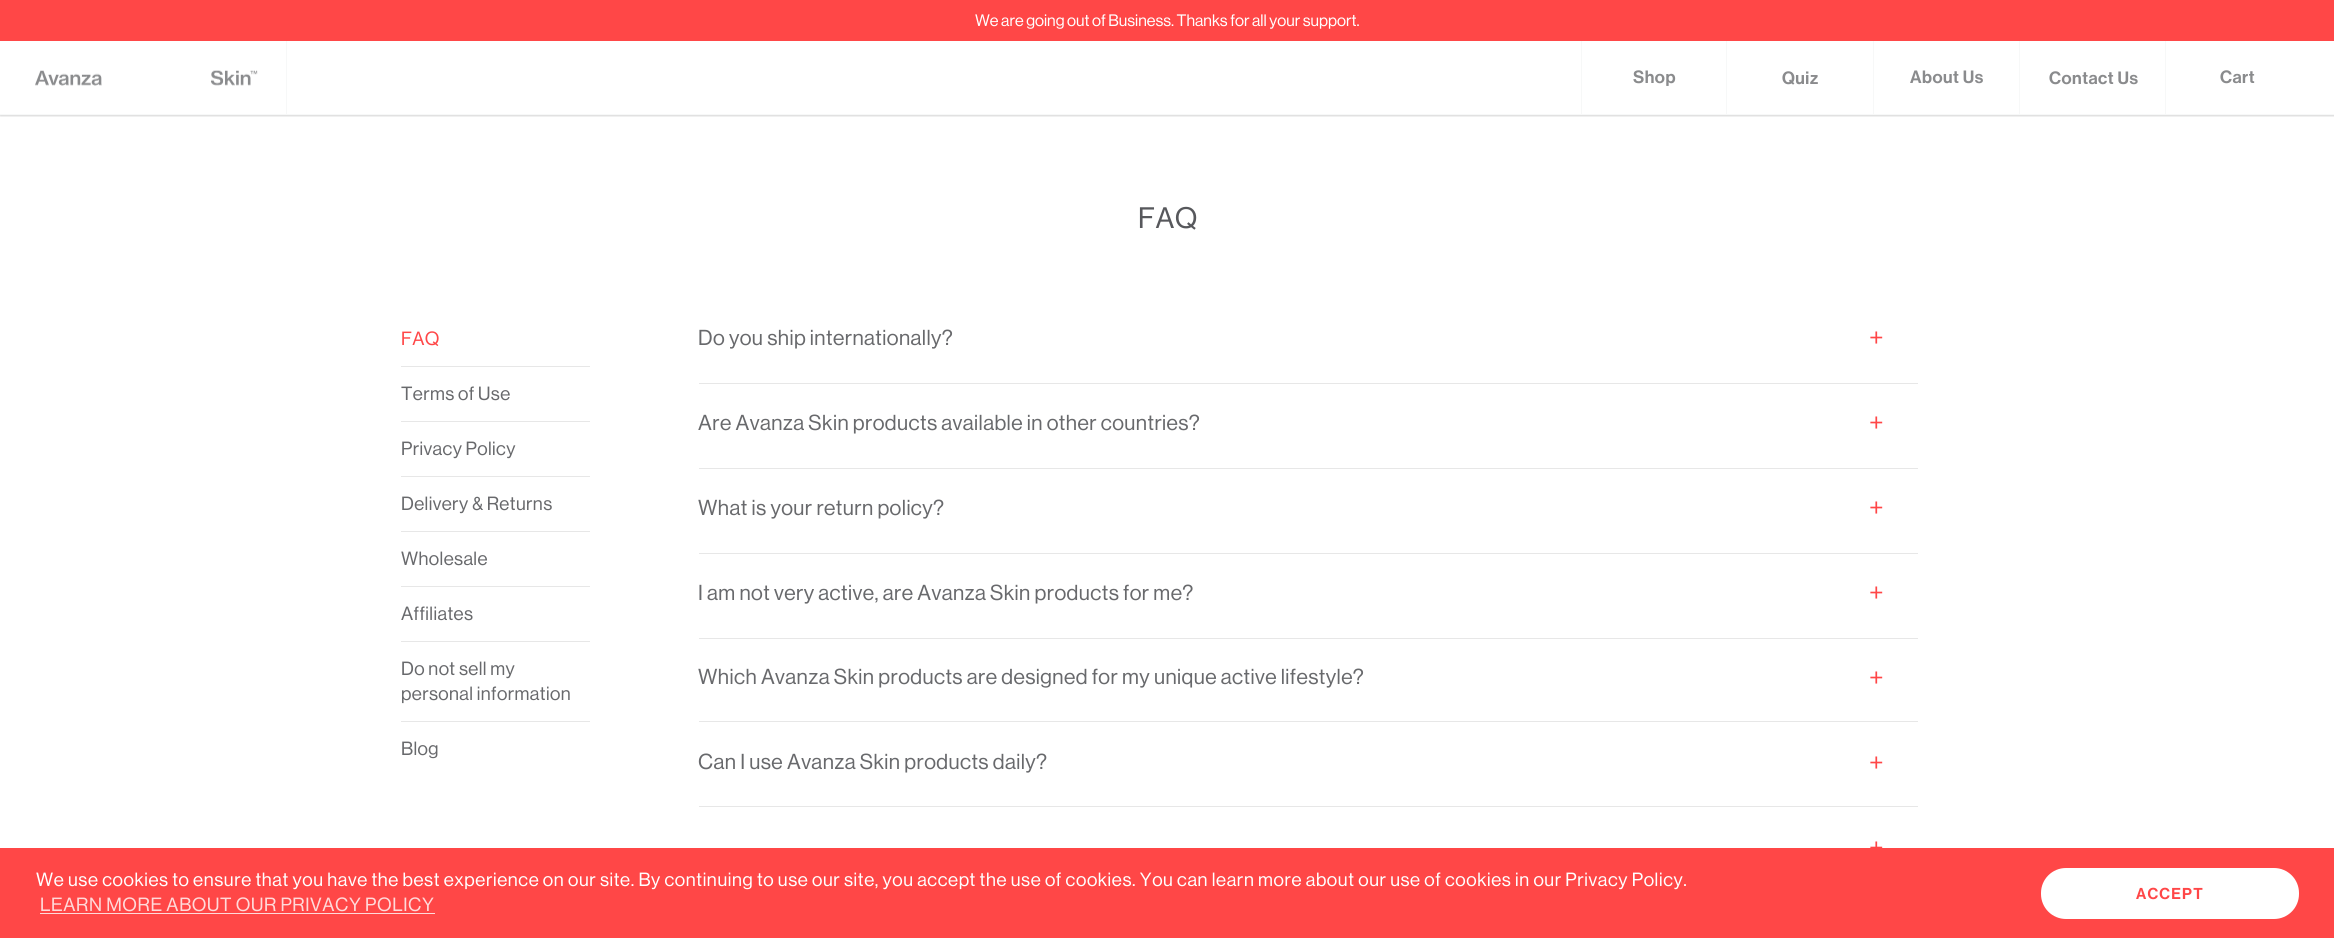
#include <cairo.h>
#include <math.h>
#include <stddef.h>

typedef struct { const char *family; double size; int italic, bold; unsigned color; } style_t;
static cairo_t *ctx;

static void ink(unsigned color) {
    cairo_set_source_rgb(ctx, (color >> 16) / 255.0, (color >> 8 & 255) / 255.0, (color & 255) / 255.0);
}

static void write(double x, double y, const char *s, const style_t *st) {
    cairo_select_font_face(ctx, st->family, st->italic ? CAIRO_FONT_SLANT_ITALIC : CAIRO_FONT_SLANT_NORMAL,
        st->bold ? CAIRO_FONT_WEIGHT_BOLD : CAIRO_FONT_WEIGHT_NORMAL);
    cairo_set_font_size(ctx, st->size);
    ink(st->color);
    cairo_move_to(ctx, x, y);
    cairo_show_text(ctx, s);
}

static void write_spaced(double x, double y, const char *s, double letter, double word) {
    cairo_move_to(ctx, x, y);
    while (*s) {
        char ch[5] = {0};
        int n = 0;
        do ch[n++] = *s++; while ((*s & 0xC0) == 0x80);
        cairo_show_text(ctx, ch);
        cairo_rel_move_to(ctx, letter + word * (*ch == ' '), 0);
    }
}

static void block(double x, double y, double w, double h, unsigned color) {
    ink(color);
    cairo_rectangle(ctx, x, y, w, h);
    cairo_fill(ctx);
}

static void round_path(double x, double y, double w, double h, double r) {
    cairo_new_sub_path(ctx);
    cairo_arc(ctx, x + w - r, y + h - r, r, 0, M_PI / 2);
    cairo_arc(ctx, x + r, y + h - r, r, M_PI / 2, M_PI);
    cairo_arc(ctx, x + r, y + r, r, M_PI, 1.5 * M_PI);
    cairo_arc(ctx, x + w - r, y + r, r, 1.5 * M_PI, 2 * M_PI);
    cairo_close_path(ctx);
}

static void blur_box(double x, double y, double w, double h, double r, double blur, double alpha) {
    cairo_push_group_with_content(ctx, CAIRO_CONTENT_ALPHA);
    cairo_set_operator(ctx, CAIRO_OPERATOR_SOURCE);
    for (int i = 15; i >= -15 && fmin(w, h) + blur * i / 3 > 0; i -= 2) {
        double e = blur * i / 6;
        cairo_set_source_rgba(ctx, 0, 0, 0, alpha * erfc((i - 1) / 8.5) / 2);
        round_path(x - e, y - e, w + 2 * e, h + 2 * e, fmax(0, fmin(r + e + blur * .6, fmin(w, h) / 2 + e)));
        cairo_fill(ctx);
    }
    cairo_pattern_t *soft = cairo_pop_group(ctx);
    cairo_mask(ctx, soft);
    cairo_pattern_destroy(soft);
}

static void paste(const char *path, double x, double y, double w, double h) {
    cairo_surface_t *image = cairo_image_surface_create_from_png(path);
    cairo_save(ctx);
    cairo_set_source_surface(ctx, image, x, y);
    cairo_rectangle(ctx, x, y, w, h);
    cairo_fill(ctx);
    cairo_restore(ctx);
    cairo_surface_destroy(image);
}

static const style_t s1 = {"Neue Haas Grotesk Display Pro", 16.25, 0, 0, 0xffffff};

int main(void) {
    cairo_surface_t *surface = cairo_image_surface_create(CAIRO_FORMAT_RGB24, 2334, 938);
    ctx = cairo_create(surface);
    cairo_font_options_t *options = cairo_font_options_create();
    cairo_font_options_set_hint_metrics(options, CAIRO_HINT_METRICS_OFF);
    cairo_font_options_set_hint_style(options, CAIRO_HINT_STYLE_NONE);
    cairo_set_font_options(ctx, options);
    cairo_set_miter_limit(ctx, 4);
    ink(0xffffff);
    cairo_paint(ctx);
    cairo_save(ctx);
    cairo_rectangle(ctx, 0, 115, 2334, 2);
    cairo_clip(ctx);
    ink(0x000000);
    blur_box(0, 1, 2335, 115, 0, 1, 0.17);
    cairo_restore(ctx);
    block(0, 114, 2334, 1, 0xf7f8f8);
    block(0, 0, 2334, 41, 0xff4747);
    write(975, 26, "We are going out of Business. Thanks for all your support.", &s1);
    block(286, 41, 1, 73, 0xf7f8f8);
    paste("pic1.png", 35, 70, 223, 16);
    block(1726, 41, 1, 73, 0xf7f8f8);
    block(1581, 41, 1, 73, 0xf7f8f8);
    cairo_select_font_face(ctx, "Neue Haas Grotesk Display Pro Medium", CAIRO_FONT_SLANT_NORMAL, CAIRO_FONT_WEIGHT_NORMAL);
    cairo_set_font_size(ctx, 17.5);
    ink(0x8a8b8d);
    write_spaced(1633, 83, "Shop", 0.5, 0);
    block(1873, 41, 1, 73, 0xf7f8f8);
    ink(0x8a8b8d);
    write_spaced(1782, 84, "Quiz", 0.5, 0);
    block(2019, 41, 1, 73, 0xf7f8f8);
    ink(0x8a8b8d);
    write_spaced(1910, 83, "About Us", 0.5, 0);
    block(2165, 41, 1, 73, 0xf7f8f8);
    ink(0x8a8b8d);
    write_spaced(2049, 84, "Contact Us", 0.5, 0);
    write_spaced(2220, 83, "Cart", 0.5, 0);
    cairo_select_font_face(ctx, "Neue Haas Grotesk Display Pro", CAIRO_FONT_SLANT_NORMAL, CAIRO_FONT_WEIGHT_NORMAL);
    cairo_set_font_size(ctx, 29);
    ink(0x57585c);
    write_spaced(1138, 228, "FAQ", 0.62, 0);
    block(401, 366, 189, 1, 0xe7e7e7);
    cairo_set_font_size(ctx, 18.75);
    ink(0xff4647);
    write_spaced(401, 345, "FAQ", 0.4, 0);
    block(401, 421, 189, 1, 0xe7e7e7);
    ink(0x68696c);
    write_spaced(401, 400, "Terms of Use", 0.4, 0);
    block(401, 476, 189, 1, 0xe7e7e7);
    ink(0x68696c);
    write_spaced(401, 455, "Privacy Policy", 0.4, 0);
    block(401, 531, 189, 1, 0xe7e7e7);
    ink(0x68696c);
    write_spaced(401, 510, "Delivery & Returns", 0.4, 0);
    block(401, 586, 189, 1, 0xe7e7e7);
    ink(0x68696c);
    write_spaced(401, 565, "Wholesale", 0.4, 0);
    block(401, 641, 189, 1, 0xe7e7e7);
    ink(0x68696c);
    write_spaced(401, 620, "Affiliates", 0.4, 0);
    block(401, 721, 189, 1, 0xe7e7e7);
    ink(0x68696c);
    write_spaced(401, 675, "Do not sell my", 0.4, 0);
    write_spaced(401, 700, "personal information", 0.4, 0);
    write_spaced(401, 755, "Blog", 0.4, 0);
    block(699, 383, 1219, 1, 0xe7e7e7);
    cairo_set_font_size(ctx, 21.25);
    ink(0x68696c);
    write_spaced(698, 345, "Do you ship internationally?", 0.43, 0);
    cairo_set_font_size(ctx, 26);
    ink(0xff4647);
    write_spaced(1869, 346, "+", 1, 0);
    block(699, 468, 1219, 1, 0xe7e7e7);
    cairo_set_font_size(ctx, 21.25);
    ink(0x68696c);
    write_spaced(698, 430, "Are Avanza Skin products available in other countries?", 0.43, 0);
    cairo_set_font_size(ctx, 26);
    ink(0xff4647);
    write_spaced(1869, 431, "+", 1, 0);
    block(699, 553, 1219, 1, 0xe7e7e7);
    cairo_set_font_size(ctx, 21.25);
    ink(0x68696c);
    write_spaced(698, 515, "What is your return policy?", 0.43, 0);
    cairo_set_font_size(ctx, 26);
    ink(0xff4647);
    write_spaced(1869, 516, "+", 1, 0);
    block(699, 638, 1219, 1, 0xe7e7e7);
    cairo_set_font_size(ctx, 21.25);
    ink(0x68696c);
    write_spaced(698, 600, "I am not very active, are Avanza Skin products for me?", 0.43, 0);
    cairo_set_font_size(ctx, 26);
    ink(0xff4647);
    write_spaced(1869, 601, "+", 1, 0);
    block(699, 721, 1219, 1, 0xe7e7e7);
    cairo_set_font_size(ctx, 21.25);
    ink(0x68696c);
    write_spaced(698, 684, "Which Avanza Skin products are designed for my unique active lifestyle?", 0.43, 0);
    cairo_set_font_size(ctx, 26);
    ink(0xff4647);
    write_spaced(1869, 686, "+", 1, 0);
    block(699, 806, 1219, 1, 0xe7e7e7);
    cairo_set_font_size(ctx, 21.25);
    ink(0x68696c);
    write_spaced(698, 769, "Can I use Avanza Skin products daily?", 0.43, 0);
    cairo_set_font_size(ctx, 26);
    ink(0xff4647);
    write_spaced(1869, 771, "+", 1, 0);
    write_spaced(1869, 856, "+", 1, 0);
    block(0, 848, 2334, 90, 0xff4747);
    cairo_set_font_size(ctx, 18.75);
    ink(0xffffff);
    write_spaced(36, 886, "We use cookies to ensure that you have the best experience on our site. By continuing to use our site, you accept the use of cookies. You can learn more about our use of cookies in our Privacy Policy.", 0.62, 0);
    ink(0xffdada);
    write_spaced(40, 911, "LEARN MORE ABOUT OUR PRIVACY POLICY", 0.62, 0);
    block(40, 913, 395, 1, 0xffdada);
    ink(0xffffff);
    round_path(2041, 868, 258, 51, 25);
    cairo_fill(ctx);
    cairo_select_font_face(ctx, "Neue Haas Grotesk Display Pro Medium", CAIRO_FONT_SLANT_NORMAL, CAIRO_FONT_WEIGHT_NORMAL);
    cairo_set_font_size(ctx, 15.5);
    ink(0xff4647);
    write_spaced(2136, 899, "ACCEPT", 1.25, 0);
    cairo_surface_write_to_png(surface, "screenshot.png");
    cairo_font_options_destroy(options);
    cairo_destroy(ctx);
    cairo_surface_destroy(surface);
    return 0;
}
